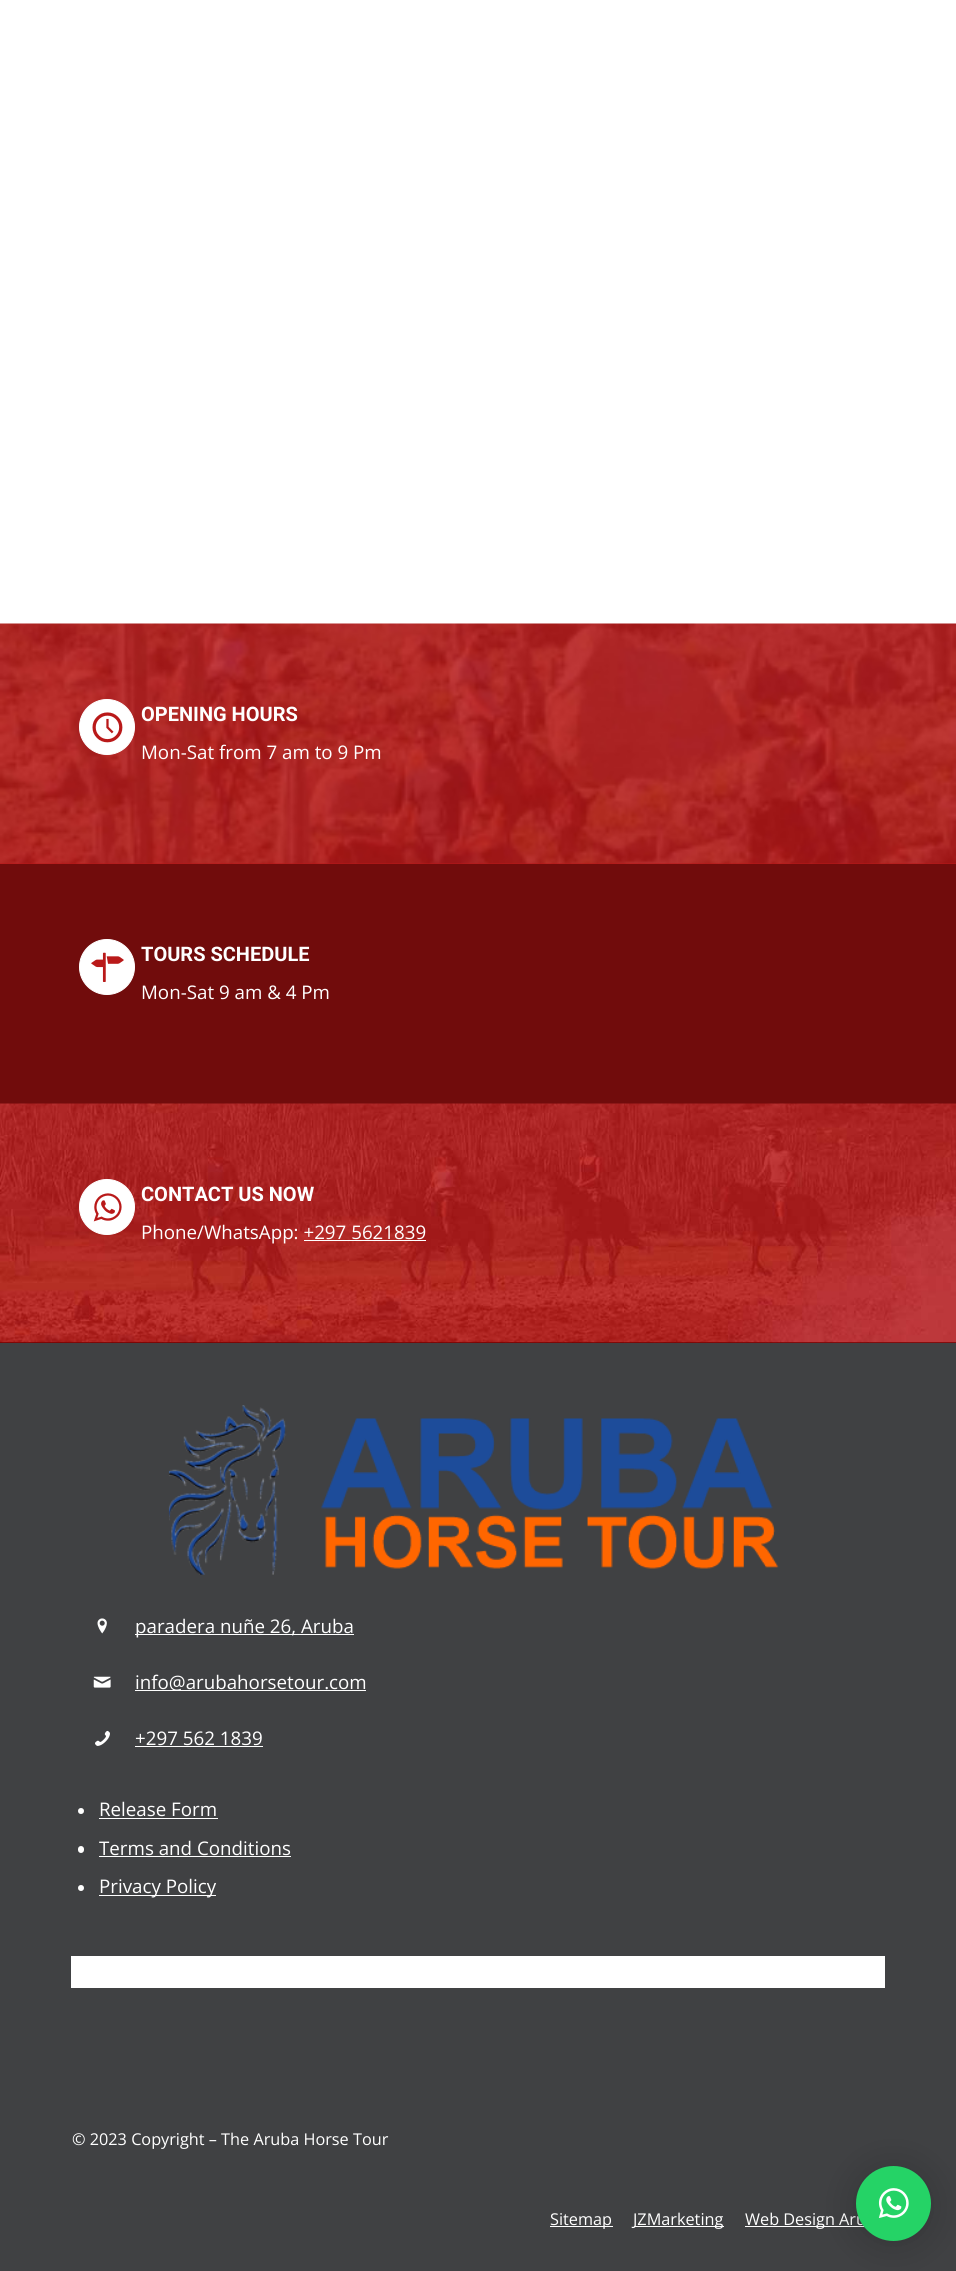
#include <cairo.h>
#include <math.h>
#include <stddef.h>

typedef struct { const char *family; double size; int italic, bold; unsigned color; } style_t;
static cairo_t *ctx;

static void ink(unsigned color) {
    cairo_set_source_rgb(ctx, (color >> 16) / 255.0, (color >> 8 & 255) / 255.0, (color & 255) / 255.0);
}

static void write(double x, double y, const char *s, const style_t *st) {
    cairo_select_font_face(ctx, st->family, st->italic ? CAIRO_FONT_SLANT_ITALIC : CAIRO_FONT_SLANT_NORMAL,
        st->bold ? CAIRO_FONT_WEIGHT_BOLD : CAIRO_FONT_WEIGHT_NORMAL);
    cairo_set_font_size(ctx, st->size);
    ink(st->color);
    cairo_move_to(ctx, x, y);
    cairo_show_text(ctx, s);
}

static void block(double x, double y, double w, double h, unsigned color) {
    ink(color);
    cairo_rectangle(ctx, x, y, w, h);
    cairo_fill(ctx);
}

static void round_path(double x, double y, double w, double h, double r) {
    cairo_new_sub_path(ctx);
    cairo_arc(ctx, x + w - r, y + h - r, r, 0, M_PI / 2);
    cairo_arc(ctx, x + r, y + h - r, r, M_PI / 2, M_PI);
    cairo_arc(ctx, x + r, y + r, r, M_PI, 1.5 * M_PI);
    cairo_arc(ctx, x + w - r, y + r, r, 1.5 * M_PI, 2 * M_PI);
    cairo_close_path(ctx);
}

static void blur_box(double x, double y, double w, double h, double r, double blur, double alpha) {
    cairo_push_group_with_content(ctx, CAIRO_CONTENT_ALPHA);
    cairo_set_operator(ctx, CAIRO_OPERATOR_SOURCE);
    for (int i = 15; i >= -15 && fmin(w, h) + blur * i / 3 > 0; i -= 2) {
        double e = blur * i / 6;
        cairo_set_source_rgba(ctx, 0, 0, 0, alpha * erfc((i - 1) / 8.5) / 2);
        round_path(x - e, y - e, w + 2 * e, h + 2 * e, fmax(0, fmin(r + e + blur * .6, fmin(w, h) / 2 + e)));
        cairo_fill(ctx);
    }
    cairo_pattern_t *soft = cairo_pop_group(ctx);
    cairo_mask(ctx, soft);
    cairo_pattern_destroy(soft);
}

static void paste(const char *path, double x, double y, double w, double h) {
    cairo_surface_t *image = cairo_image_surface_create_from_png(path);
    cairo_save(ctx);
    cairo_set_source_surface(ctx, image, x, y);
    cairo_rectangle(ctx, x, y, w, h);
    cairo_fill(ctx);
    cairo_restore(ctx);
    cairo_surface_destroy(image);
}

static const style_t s1 = {"Roboto", 20, 0, 1, 0xffffff};
static const style_t s2 = {"Open Sans", 18.75, 0, 0, 0xffffff};
static const style_t s3 = {"Open Sans", 16.25, 0, 0, 0xffffff};

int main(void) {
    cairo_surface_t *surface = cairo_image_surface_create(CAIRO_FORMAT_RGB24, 956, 2271);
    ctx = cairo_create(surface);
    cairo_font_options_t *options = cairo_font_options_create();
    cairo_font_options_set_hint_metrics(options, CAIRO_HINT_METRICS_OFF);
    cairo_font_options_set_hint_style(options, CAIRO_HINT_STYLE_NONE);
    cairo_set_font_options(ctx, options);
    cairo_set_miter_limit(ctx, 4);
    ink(0x404143);
    cairo_paint(ctx);
    block(0, 0, 956, 624, 0xffffff);
    block(0, 863, 956, 1, 0xb91919);
    paste("pic1.png", 0, 623, 956, 241);
    ink(0xffffff);
    cairo_arc(ctx, 107, 727, 27.5, 0, 2 * M_PI);
    cairo_fill_preserve(ctx);
    cairo_set_line_width(ctx, 1);
    cairo_stroke(ctx);
    paste("pic2.png", 92, 712, 31, 31);
    write(141, 721, "OPENING HOURS", &s1);
    write(141, 759, "Mon-Sat from 7 am to 9 Pm", &s2);
    block(0, 864, 956, 240, 0x710c0c);
    ink(0xffffff);
    cairo_new_path(ctx);
    cairo_arc(ctx, 107, 967, 27.5, 0, 2 * M_PI);
    cairo_fill_preserve(ctx);
    cairo_stroke(ctx);
    paste("pic3.png", 91, 952, 33, 30);
    write(141, 961, "TOURS SCHEDULE", &s1);
    write(141, 999, "Mon-Sat 9 am & 4 Pm", &s2);
    block(0, 1342, 956, 1, 0x700000);
    paste("pic4.png", 0, 1103, 956, 240);
    ink(0xffffff);
    cairo_arc(ctx, 107, 1207, 27.5, 0, 2 * M_PI);
    cairo_fill_preserve(ctx);
    cairo_stroke(ctx);
    paste("pic5.png", 93, 1193, 29, 29);
    write(141, 1201, "CONTACT US NOW", &s1);
    write(141, 1239, "Phone/WhatsApp: +297 5621839", &s2);
    block(304, 1240, 122, 1, 0xffffff);
    paste("pic6.png", 168, 1405, 611, 170);
    paste("pic7.png", 97, 1618, 10, 16);
    block(135, 1634, 219, 1, 0xffffff);
    write(135, 1633, "paradera nuñe 26, Aruba", &s2);
    paste("pic8.png", 93, 1676, 18, 12);
    block(135, 1690, 231, 1, 0xffffff);
    write(135, 1689, "info@arubahorsetour.com", &s2);
    paste("pic9.png", 95, 1730, 15, 16);
    write(135, 1745, "+297 562 1839", &s2);
    block(135, 1746, 128, 1, 0xffffff);
    cairo_new_path(ctx);
    cairo_arc(ctx, 81, 1811, 3, 0, 2 * M_PI);
    cairo_fill(ctx);
    write(99, 1816, "Release Form", &s2);
    block(99, 1818, 119, 1, 0xffffff);
    round_path(78, 1846, 6, 7, 3);
    cairo_fill(ctx);
    write(99, 1855, "Terms and Conditions", &s2);
    block(99, 1856, 192, 1, 0xffffff);
    cairo_new_path(ctx);
    cairo_arc(ctx, 81, 1888, 3, 0, 2 * M_PI);
    cairo_fill(ctx);
    block(99, 1895, 117, 1, 0xffffff);
    write(99, 1893, "Privacy Policy", &s2);
    block(71, 1956, 814, 32, 0xffffff);
    write(72, 2145, "© 2023 Copyright – The Aruba Horse Tour", &s3);
    block(550, 2226, 63, 1, 0xffffff);
    write(550, 2225, "Sitemap", &s3);
    block(634, 2226, 90, 1, 0xffffff);
    write(633, 2225, "JZMarketing", &s3);
    block(745, 2226, 120, 1, 0xffffff);
    write(745, 2225, "Web Design Aru", &s3);
    ink(0x000000);
    blur_box(856, 2169, 75, 75, 37.5, 20, 0.16);
    blur_box(856, 2168, 75, 75, 37.5, 4, 0.06);
    ink(0x25d366);
    cairo_arc(ctx, 893.5, 2203.5, 37.5, 0, 2 * M_PI);
    cairo_fill(ctx);
    paste("pic10.png", 878, 2188, 31, 30);
    cairo_surface_write_to_png(surface, "screenshot.png");
    cairo_font_options_destroy(options);
    cairo_destroy(ctx);
    cairo_surface_destroy(surface);
    return 0;
}
